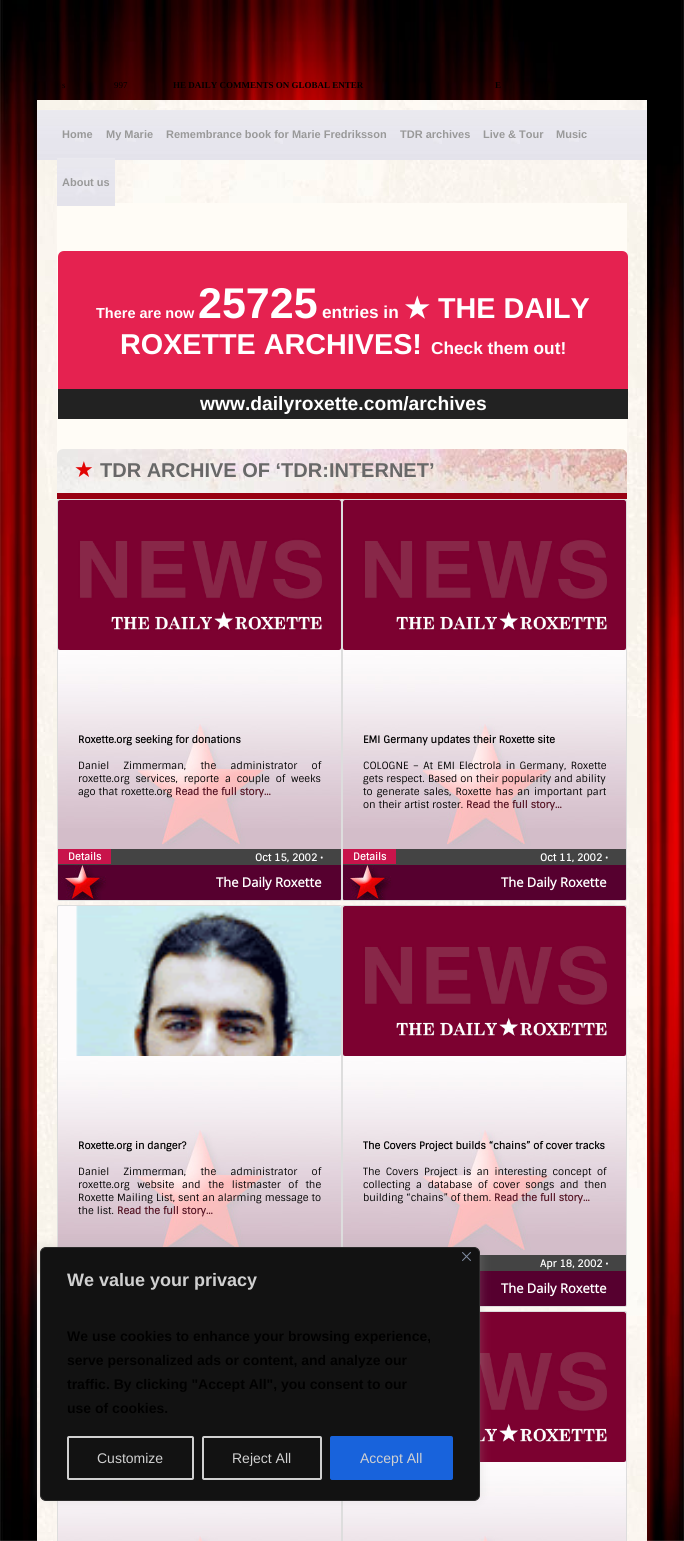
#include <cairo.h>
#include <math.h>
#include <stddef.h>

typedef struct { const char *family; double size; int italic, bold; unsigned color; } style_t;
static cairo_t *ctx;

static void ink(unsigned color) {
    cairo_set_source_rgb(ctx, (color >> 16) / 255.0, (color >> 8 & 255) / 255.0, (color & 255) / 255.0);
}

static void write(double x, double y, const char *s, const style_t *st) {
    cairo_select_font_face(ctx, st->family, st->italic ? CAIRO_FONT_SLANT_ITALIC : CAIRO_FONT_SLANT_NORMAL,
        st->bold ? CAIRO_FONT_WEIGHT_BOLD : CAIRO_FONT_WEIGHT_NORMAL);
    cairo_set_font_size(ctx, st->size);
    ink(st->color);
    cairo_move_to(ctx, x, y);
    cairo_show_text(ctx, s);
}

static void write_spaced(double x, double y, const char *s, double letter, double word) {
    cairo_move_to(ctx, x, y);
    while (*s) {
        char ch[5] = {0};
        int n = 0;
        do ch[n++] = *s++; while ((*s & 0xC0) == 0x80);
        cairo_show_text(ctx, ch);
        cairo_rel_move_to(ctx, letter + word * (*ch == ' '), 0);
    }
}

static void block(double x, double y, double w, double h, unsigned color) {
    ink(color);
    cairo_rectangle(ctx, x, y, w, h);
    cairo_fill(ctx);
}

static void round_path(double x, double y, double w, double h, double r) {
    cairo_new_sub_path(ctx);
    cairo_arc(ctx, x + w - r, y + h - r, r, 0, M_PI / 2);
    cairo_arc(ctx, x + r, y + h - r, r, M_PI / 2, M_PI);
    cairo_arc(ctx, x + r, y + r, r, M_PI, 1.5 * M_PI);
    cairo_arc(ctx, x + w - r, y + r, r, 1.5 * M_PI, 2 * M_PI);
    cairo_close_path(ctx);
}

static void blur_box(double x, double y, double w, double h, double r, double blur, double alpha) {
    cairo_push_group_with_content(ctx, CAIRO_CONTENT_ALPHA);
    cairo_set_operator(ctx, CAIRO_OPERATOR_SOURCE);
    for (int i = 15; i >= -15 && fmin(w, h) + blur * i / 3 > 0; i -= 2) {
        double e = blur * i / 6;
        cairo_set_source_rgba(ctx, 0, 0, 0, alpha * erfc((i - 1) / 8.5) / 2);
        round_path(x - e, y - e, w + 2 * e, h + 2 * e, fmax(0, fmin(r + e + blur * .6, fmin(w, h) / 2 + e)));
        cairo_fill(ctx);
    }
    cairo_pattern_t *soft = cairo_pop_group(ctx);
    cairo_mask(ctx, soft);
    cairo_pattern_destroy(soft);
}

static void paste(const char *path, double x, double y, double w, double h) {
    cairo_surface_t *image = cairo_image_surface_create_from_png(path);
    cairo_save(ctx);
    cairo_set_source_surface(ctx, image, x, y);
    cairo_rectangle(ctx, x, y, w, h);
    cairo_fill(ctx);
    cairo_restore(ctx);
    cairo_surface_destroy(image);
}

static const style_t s1 = {"Liberation Serif", 9, 0, 0, 0x000000};
static const style_t s2 = {"Liberation Serif", 9, 0, 1, 0x000000};
static const style_t s3 = {"Liberation Sans", 11, 0, 1, 0x999999};
static const style_t s4 = {"Liberation Sans", 14.5, 0, 1, 0xffffff};
static const style_t s5 = {"Liberation Sans", 43, 0, 1, 0xffffff};
static const style_t s6 = {"Liberation Sans", 17.25, 0, 1, 0xffffff};
static const style_t s7 = {"DejaVu Sans", 28.75, 0, 1, 0xffffff};
static const style_t s8 = {"Liberation Sans", 28.75, 0, 1, 0xffffff};
static const style_t s9 = {"Liberation Sans", 19.25, 0, 1, 0xffffff};
static const style_t s10 = {"DejaVu Sans", 22, 0, 0, 0xe20404};
static const style_t s11 = {"Liberation Sans", 20, 0, 1, 0x686868};
static const style_t s12 = {"Sintony", 10, 0, 1, 0x000000};
static const style_t s13 = {"Sintony", 10, 0, 0, 0x000000};
static const style_t s14 = {"Sintony", 10, 0, 1, 0x561525};
static const style_t s15 = {"Sintony", 10, 0, 1, 0xffffff};
static const style_t s16 = {"Open Sans", 13, 0, 1, 0xffffff};
static const style_t s17 = {"Liberation Sans", 18, 0, 1, 0xd0d0d0};
static const style_t s18 = {"Liberation Sans", 14, 0, 1, 0x000000};
static const style_t s19 = {"Liberation Sans", 14, 0, 0, 0xd0d0d0};

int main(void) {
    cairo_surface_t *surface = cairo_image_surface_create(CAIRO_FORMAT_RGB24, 684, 1541);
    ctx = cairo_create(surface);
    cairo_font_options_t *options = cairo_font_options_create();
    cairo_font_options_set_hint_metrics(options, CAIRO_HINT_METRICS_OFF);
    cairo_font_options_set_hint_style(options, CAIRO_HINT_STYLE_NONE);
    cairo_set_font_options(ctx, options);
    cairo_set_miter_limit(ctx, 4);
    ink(0xffffff);
    cairo_paint(ctx);
    paste("pic1.png", 0, 0, 684, 1541);
    write(62, 88, "s", &s1);
    write(114, 88, "997", &s1);
    write(173, 88, "HE DAILY COMMENTS ON GLOBAL ENTER", &s2);
    write(495, 88, "E", &s2);
    paste("pic7.png", 37, 100, 610, 1441);
    paste("pic2.png", 37, 110, 610, 50);
    paste("pic3.png", 75, 138, 9, 4);
    write(62, 138, "Home", &s3);
    paste("pic3.png", 127, 138, 9, 4);
    write(106, 138, "My Marie", &s3);
    paste("pic4.png", 274, 138, 9, 6);
    write(166, 138, "Remembrance book for Marie Fredriksson", &s3);
    paste("pic4.png", 433, 138, 9, 6);
    write(400, 138, "TDR archives", &s3);
    paste("pic4.png", 511, 138, 9, 6);
    write(483, 138, "Live & Tour", &s3);
    paste("pic5.png", 569, 138, 10, 4);
    write(556, 138, "Music", &s3);
    block(57, 203, 570, 298, 0xfffcf6);
    paste("pic6.png", 57, 158, 58, 48);
    write(62, 186, "About us", &s3);
    ink(0xe52250);
    cairo_new_path(ctx);
    cairo_move_to(ctx, 64, 251);
    cairo_line_to(ctx, 622, 251);
    cairo_curve_to(ctx, 625.5, 251, 628, 253.5, 628, 257);
    cairo_line_to(ctx, 628, 389);
    cairo_line_to(ctx, 58, 389);
    cairo_line_to(ctx, 58, 257);
    cairo_curve_to(ctx, 58, 253.5, 60.5, 251, 64, 251);
    cairo_close_path(ctx);
    cairo_fill(ctx);
    write(96, 318, "There are now", &s4);
    write(198, 318, "25725", &s5);
    write(322, 318, "entries in", &s6);
    write(404, 318, "★", &s7);
    write(438, 318, "THE DAILY", &s8);
    write(120, 354, "ROXETTE ARCHIVES!", &s8);
    write(431, 354, "Check them out!", &s6);
    block(58, 389, 570, 30, 0x222222);
    write(200, 410, "www.dailyroxette.com/archives", &s9);
    paste("pic8.png", 57, 449, 570, 44);
    write(74, 477, "★", &s10);
    write(100, 477, "TDR ARCHIVE OF ‘TDR:INTERNET’", &s11);
    block(57, 493, 570, 6, 0x980012);
    paste("pic9.png", 58, 500, 283, 400);
    round_path(57.5, 499.5, 284, 401, 1.5);
    ink(0xdddddd);
    cairo_set_line_width(ctx, 1);
    cairo_stroke(ctx);
    paste("pic10.png", 58, 500, 283, 150);
    write(78, 743, "Roxette.org seeking for donations", &s12);
    cairo_select_font_face(ctx, "Sintony", CAIRO_FONT_SLANT_NORMAL, CAIRO_FONT_WEIGHT_NORMAL);
    write_spaced(78, 769, "Daniel Zimmerman, the administrator of", 0, 11.5);
    write_spaced(78, 782, "roxette.org services, reporte a couple of weeks", 0, 3);
    write(78, 795, "ago that roxette.org", &s13);
    write(175, 795, "Read the full story...", &s14);
    block(58, 849, 283, 16, 0x444444);
    block(58, 849, 53, 15, 0xc8144b);
    write(68, 860, "Details", &s15);
    write(255, 861, "Oct 15, 2002 •", &s15);
    write(216, 887, "The Daily Roxette", &s16);
    paste("pic9.png", 343, 500, 283, 400);
    round_path(342.5, 499.5, 284, 401, 1.5);
    ink(0xdddddd);
    cairo_stroke(ctx);
    paste("pic11.png", 343, 500, 283, 150);
    write(363, 743, "EMI Germany updates their Roxette site", &s12);
    cairo_select_font_face(ctx, "Sintony", CAIRO_FONT_SLANT_NORMAL, CAIRO_FONT_WEIGHT_NORMAL);
    write_spaced(363, 769, "COLOGNE – At EMI Electrola in Germany, Roxette", 0, 1.5);
    write(363, 782, "gets respect.", &s13);
    write(428, 782, "Based on their popularity and ability", &s13);
    write_spaced(363, 795, "to generate sales, Roxette has an important part", 0, 1.25);
    write(363, 808, "on their artist roster.", &s13);
    write(466, 808, "Read the full story...", &s14);
    block(343, 849, 283, 16, 0x444444);
    block(343, 849, 53, 15, 0xc8144b);
    write(353, 860, "Details", &s15);
    write(540, 861, "Oct 11, 2002 •", &s15);
    write(501, 887, "The Daily Roxette", &s16);
    paste("pic12.png", 58, 906, 283, 341);
    round_path(57.5, 905.5, 284, 401, 1.5);
    ink(0xdddddd);
    cairo_stroke(ctx);
    paste("pic13.png", 76, 906, 265, 150);
    write(78, 1149, "Roxette.org in danger?", &s12);
    cairo_select_font_face(ctx, "Sintony", CAIRO_FONT_SLANT_NORMAL, CAIRO_FONT_WEIGHT_NORMAL);
    write_spaced(78, 1175, "Daniel Zimmerman, the administrator of", 0, 11.5);
    write_spaced(78, 1188, "roxette.org website and the listmaster of the", 0, 4.75);
    write_spaced(78, 1201, "Roxette Mailing List, sent an alarming message to", 0, 0.25);
    write(78, 1214, "the list.", &s13);
    write(117, 1214, "Read the full story...", &s14);
    paste("pic9.png", 343, 906, 283, 400);
    round_path(342.5, 905.5, 284, 401, 1.5);
    ink(0xdddddd);
    cairo_stroke(ctx);
    paste("pic11.png", 343, 906, 283, 150);
    write(363, 1149, "The Covers Project builds “chains” of cover tracks", &s12);
    cairo_select_font_face(ctx, "Sintony", CAIRO_FONT_SLANT_NORMAL, CAIRO_FONT_WEIGHT_NORMAL);
    write_spaced(363, 1175, "The Covers Project is an interesting concept of", 0, 2.5);
    write_spaced(363, 1188, "collecting a database of cover songs and then", 0, 2.75);
    write(363, 1201, "building “chains” of them.", &s13);
    write(494, 1201, "Read the full story...", &s14);
    block(480, 1255, 146, 16, 0x444444);
    write(540, 1267, "Apr 18, 2002 •", &s15);
    write(501, 1293, "The Daily Roxette", &s16);
    paste("pic14.png", 58, 1501, 283, 40);
    cairo_rectangle(ctx, 57.5, 1311.5, 284, 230);
    ink(0xdddddd);
    cairo_stroke(ctx);
    paste("pic15.png", 343, 1312, 283, 229);
    round_path(342.5, 1311.5, 284, 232, 1.5);
    cairo_stroke(ctx);
    paste("pic16.png", 480, 1312, 146, 150);
    ink(0xacabab);
    blur_box(40, 1246, 440, 254, 6, 5, 0.3);
    ink(0x121212);
    round_path(40.5, 1247.5, 439, 253, 5.5);
    cairo_fill_preserve(ctx);
    ink(0x2a2a2a);
    cairo_stroke(ctx);
    paste("pic17.png", 462, 1252, 9, 9);
    write(67, 1286, "We value your privacy", &s17);
    write(67, 1341, "We use cookies to enhance your browsing experience,", &s18);
    write(67, 1365, "serve personalized ads or content, and analyze our", &s18);
    write(67, 1389, "traffic. By clicking \"Accept All\", you consent to our", &s18);
    write(67, 1413, "use of cookies.", &s18);
    round_path(68, 1437, 125, 42, 1);
    ink(0xd0d0d0);
    cairo_set_line_width(ctx, 2);
    cairo_stroke(ctx);
    write(97, 1463, "Customize", &s19);
    round_path(203, 1437, 118, 42, 1);
    cairo_stroke(ctx);
    write(232, 1463, "Reject All", &s19);
    ink(0x1863dc);
    round_path(331, 1437, 121, 42, 1);
    cairo_fill_preserve(ctx);
    cairo_stroke(ctx);
    write(360, 1463, "Accept All", &s19);
    cairo_surface_write_to_png(surface, "screenshot.png");
    cairo_font_options_destroy(options);
    cairo_destroy(ctx);
    cairo_surface_destroy(surface);
    return 0;
}
